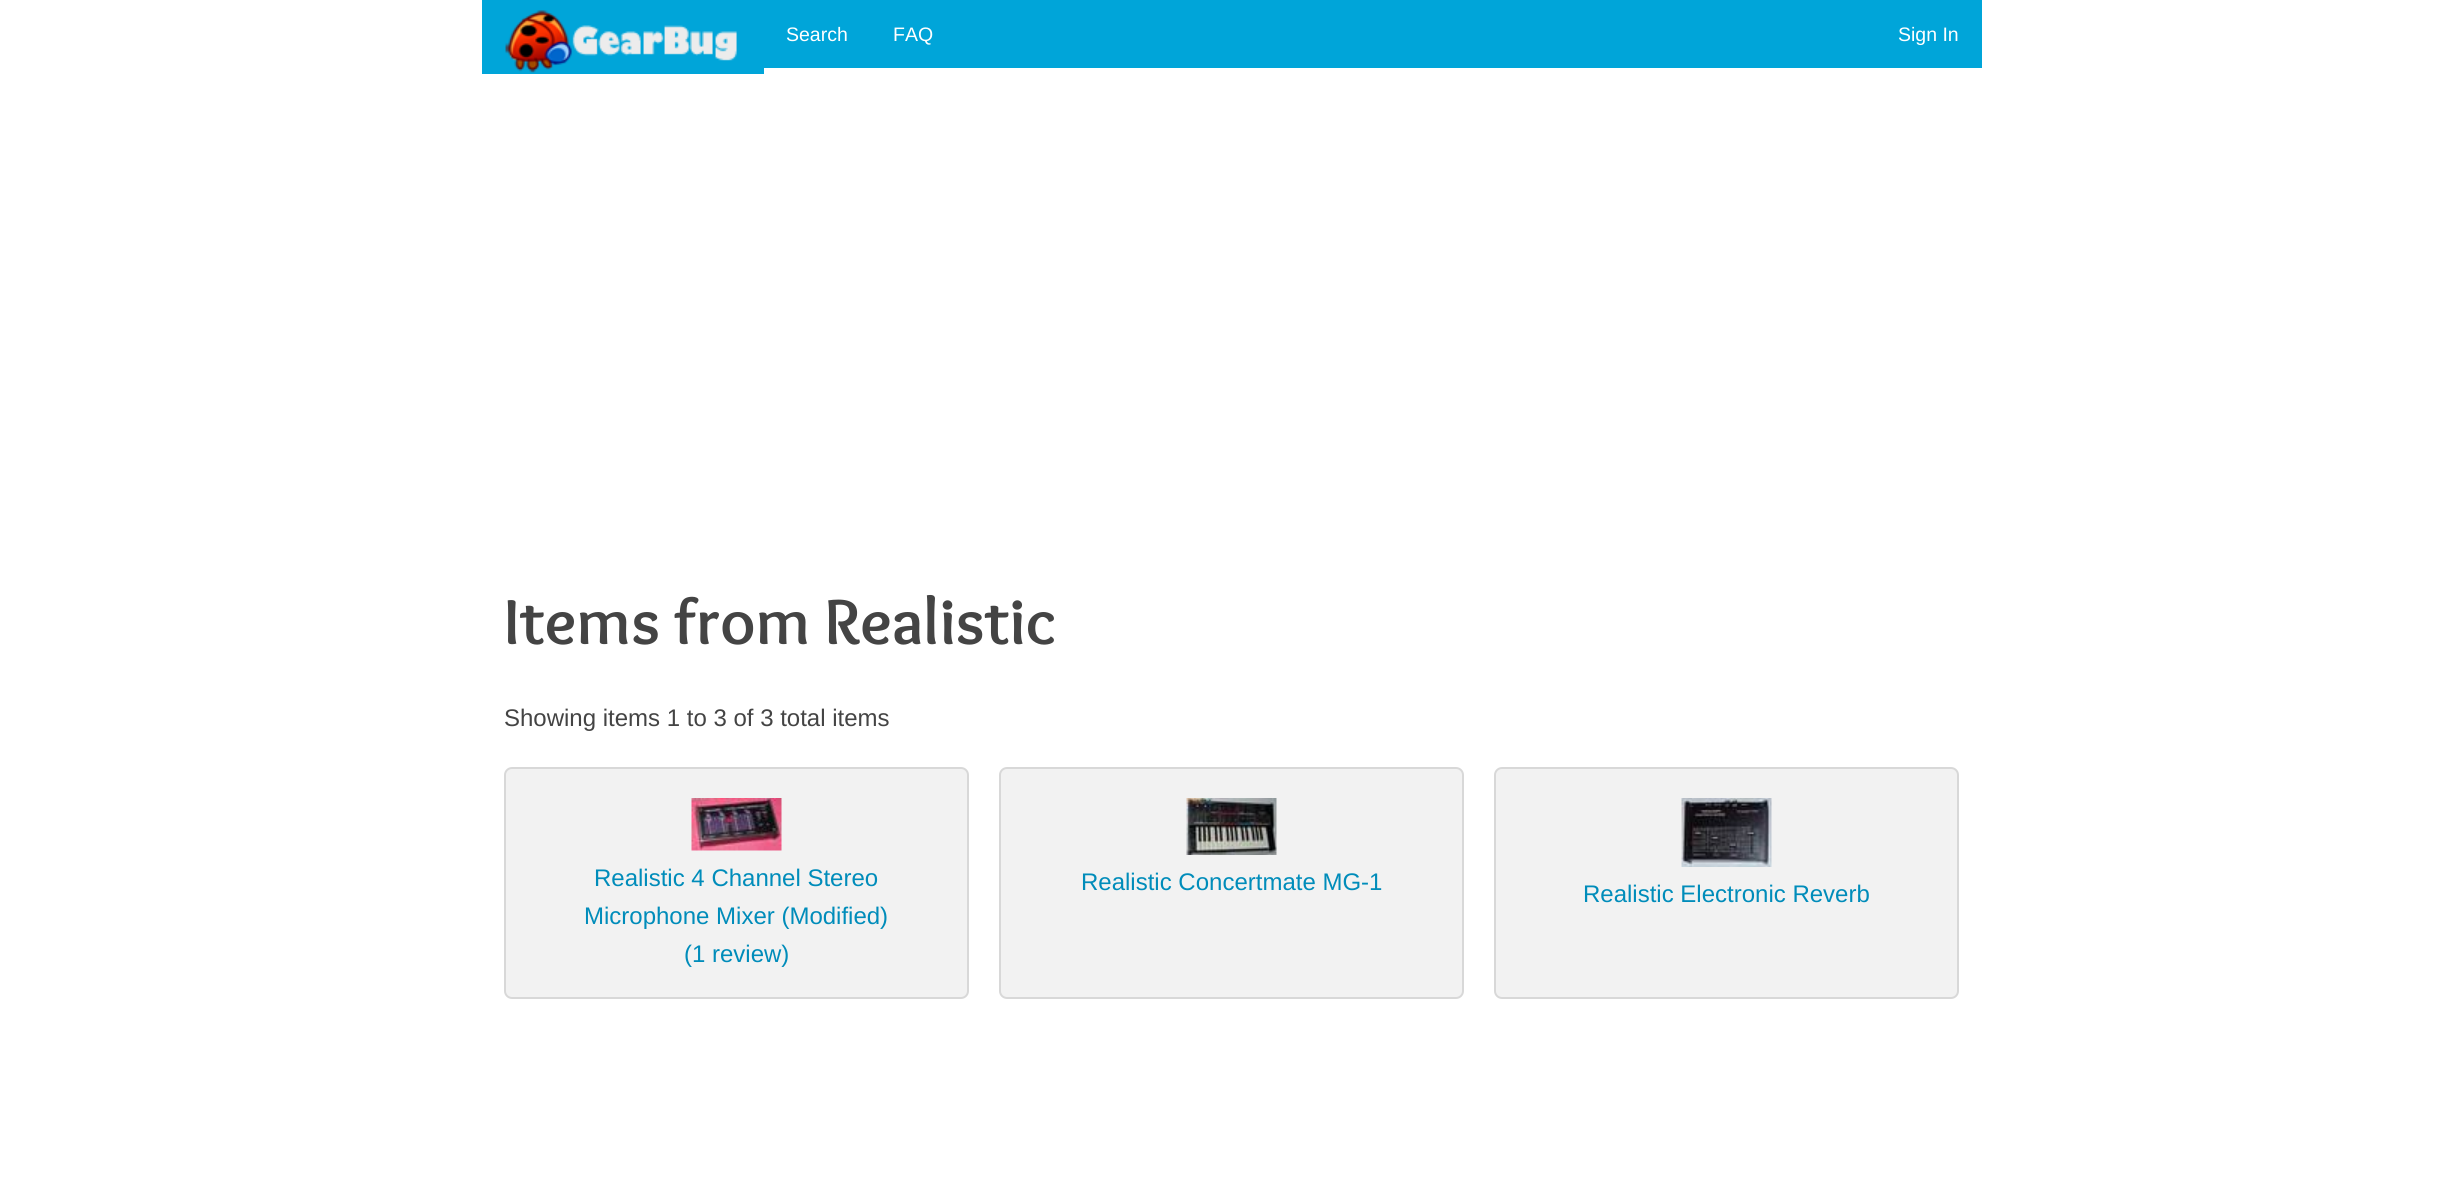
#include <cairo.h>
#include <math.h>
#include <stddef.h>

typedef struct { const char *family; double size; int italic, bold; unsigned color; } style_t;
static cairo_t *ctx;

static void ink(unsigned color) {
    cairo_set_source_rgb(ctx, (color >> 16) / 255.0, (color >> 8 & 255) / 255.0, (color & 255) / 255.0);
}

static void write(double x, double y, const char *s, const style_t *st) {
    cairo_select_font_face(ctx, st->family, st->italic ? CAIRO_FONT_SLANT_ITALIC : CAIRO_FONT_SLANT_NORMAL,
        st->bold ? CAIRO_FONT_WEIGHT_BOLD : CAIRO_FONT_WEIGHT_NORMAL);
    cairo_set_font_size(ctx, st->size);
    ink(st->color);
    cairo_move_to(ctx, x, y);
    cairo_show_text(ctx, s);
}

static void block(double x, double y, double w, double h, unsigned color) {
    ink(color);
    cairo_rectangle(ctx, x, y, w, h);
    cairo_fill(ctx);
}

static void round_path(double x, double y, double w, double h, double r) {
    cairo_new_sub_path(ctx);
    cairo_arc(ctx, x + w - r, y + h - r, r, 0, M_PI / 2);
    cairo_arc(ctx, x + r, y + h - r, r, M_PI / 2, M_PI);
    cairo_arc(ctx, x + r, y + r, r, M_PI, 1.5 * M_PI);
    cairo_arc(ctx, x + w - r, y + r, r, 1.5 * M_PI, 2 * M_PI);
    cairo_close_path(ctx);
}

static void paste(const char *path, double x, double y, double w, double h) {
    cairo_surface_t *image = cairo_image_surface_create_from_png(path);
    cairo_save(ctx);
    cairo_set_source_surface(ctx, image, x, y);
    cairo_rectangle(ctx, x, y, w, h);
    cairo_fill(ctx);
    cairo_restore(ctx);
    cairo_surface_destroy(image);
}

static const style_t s1 = {"Liberation Sans", 19.5, 0, 0, 0xffffff};
static const style_t s2 = {"Overlock", 66, 0, 1, 0x444444};
static const style_t s3 = {"Liberation Sans", 24, 0, 0, 0x444444};
static const style_t s4 = {"Liberation Sans", 24, 0, 0, 0x008cba};

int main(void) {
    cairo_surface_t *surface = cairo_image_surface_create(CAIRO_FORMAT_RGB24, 2462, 1201);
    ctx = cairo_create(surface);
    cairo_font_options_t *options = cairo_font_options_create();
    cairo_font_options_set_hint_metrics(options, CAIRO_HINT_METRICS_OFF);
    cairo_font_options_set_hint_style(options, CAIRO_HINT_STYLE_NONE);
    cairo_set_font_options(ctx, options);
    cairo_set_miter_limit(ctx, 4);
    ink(0xffffff);
    cairo_paint(ctx);
    block(956, 0, 1026, 68, 0x00a5d9);
    block(482, 0, 282, 74, 0x00a5d9);
    paste("pic1.png", 505, 10, 232, 63);
    block(764, 0, 192, 68, 0x00a5d9);
    write(786, 41, "Search", &s1);
    write(893, 41, "FAQ", &s1);
    write(1898, 41, "Sign In", &s1);
    write(504, 644, "Items from Realistic", &s2);
    write(504, 726, "Showing items 1 to 3 of 3 total items", &s3);
    ink(0xf2f2f2);
    round_path(505, 768, 463, 230, 7);
    cairo_fill_preserve(ctx);
    ink(0xd8d8d8);
    cairo_stroke(ctx);
    paste("pic2.png", 691, 798, 91, 53);
    write(594, 886, "Realistic 4 Channel Stereo", &s4);
    write(584, 924, "Microphone Mixer (Modified)", &s4);
    write(684, 962, "(1 review)", &s4);
    ink(0xf2f2f2);
    round_path(1000, 768, 463, 230, 7);
    cairo_fill_preserve(ctx);
    ink(0xd8d8d8);
    cairo_stroke(ctx);
    paste("pic3.png", 1186, 798, 91, 57);
    write(1081, 890, "Realistic Concertmate MG-1", &s4);
    ink(0xf2f2f2);
    round_path(1495, 768, 463, 230, 7);
    cairo_fill_preserve(ctx);
    ink(0xd8d8d8);
    cairo_stroke(ctx);
    paste("pic4.png", 1681, 798, 91, 69);
    write(1583, 902, "Realistic Electronic Reverb", &s4);
    cairo_surface_write_to_png(surface, "screenshot.png");
    cairo_font_options_destroy(options);
    cairo_destroy(ctx);
    cairo_surface_destroy(surface);
    return 0;
}
